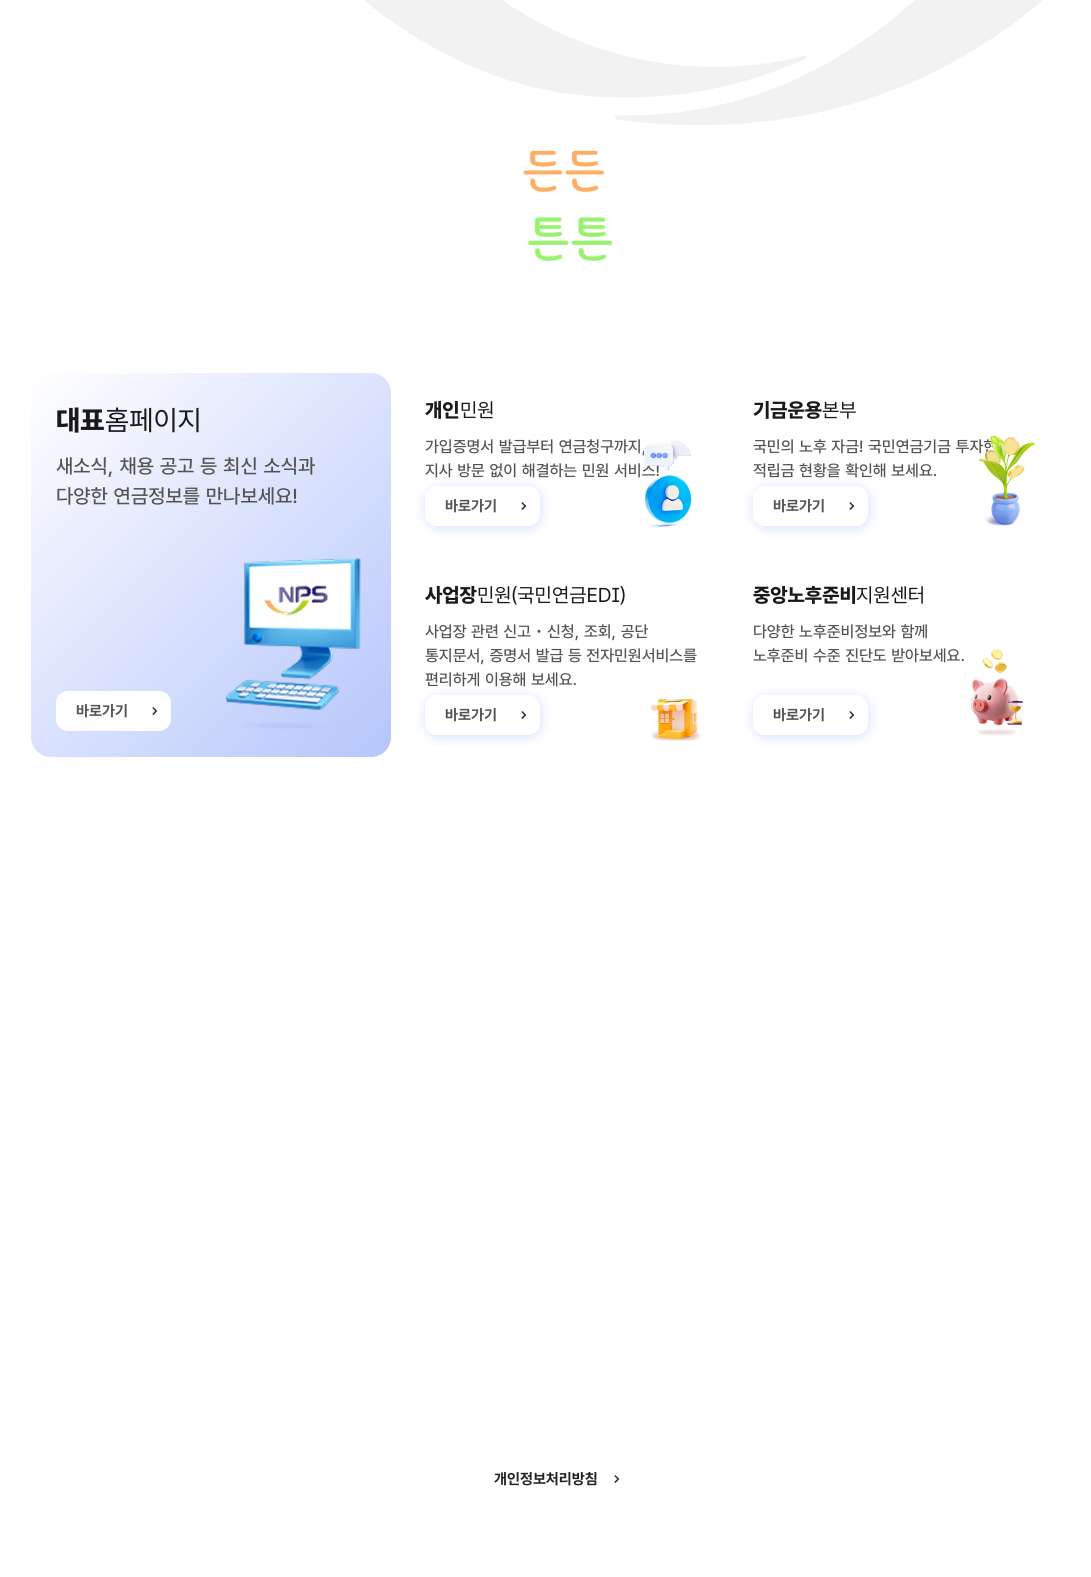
#include <cairo.h>
#include <math.h>
#include <stddef.h>

typedef struct { const char *family; double size; int italic, bold; unsigned color; } style_t;
static cairo_t *ctx;

static void ink(unsigned color) {
    cairo_set_source_rgb(ctx, (color >> 16) / 255.0, (color >> 8 & 255) / 255.0, (color & 255) / 255.0);
}

static void write(double x, double y, const char *s, const style_t *st) {
    cairo_select_font_face(ctx, st->family, st->italic ? CAIRO_FONT_SLANT_ITALIC : CAIRO_FONT_SLANT_NORMAL,
        st->bold ? CAIRO_FONT_WEIGHT_BOLD : CAIRO_FONT_WEIGHT_NORMAL);
    cairo_set_font_size(ctx, st->size);
    ink(st->color);
    cairo_move_to(ctx, x, y);
    cairo_show_text(ctx, s);
}

static void round_path(double x, double y, double w, double h, double r) {
    cairo_new_sub_path(ctx);
    cairo_arc(ctx, x + w - r, y + h - r, r, 0, M_PI / 2);
    cairo_arc(ctx, x + r, y + h - r, r, M_PI / 2, M_PI);
    cairo_arc(ctx, x + r, y + r, r, M_PI, 1.5 * M_PI);
    cairo_arc(ctx, x + w - r, y + r, r, 1.5 * M_PI, 2 * M_PI);
    cairo_close_path(ctx);
}

static void blur_box(double x, double y, double w, double h, double r, double blur, double alpha) {
    cairo_push_group_with_content(ctx, CAIRO_CONTENT_ALPHA);
    cairo_set_operator(ctx, CAIRO_OPERATOR_SOURCE);
    for (int i = 15; i >= -15 && fmin(w, h) + blur * i / 3 > 0; i -= 2) {
        double e = blur * i / 6;
        cairo_set_source_rgba(ctx, 0, 0, 0, alpha * erfc((i - 1) / 8.5) / 2);
        round_path(x - e, y - e, w + 2 * e, h + 2 * e, fmax(0, fmin(r + e + blur * .6, fmin(w, h) / 2 + e)));
        cairo_fill(ctx);
    }
    cairo_pattern_t *soft = cairo_pop_group(ctx);
    cairo_mask(ctx, soft);
    cairo_pattern_destroy(soft);
}

static void paste(const char *path, double x, double y, double w, double h) {
    cairo_surface_t *image = cairo_image_surface_create_from_png(path);
    cairo_save(ctx);
    cairo_set_source_surface(ctx, image, x, y);
    cairo_rectangle(ctx, x, y, w, h);
    cairo_fill(ctx);
    cairo_restore(ctx);
    cairo_surface_destroy(image);
}

static const style_t s1 = {"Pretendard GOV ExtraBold", 28, 0, 0, 0x191919};
static const style_t s2 = {"Pretendard GOV", 28, 0, 0, 0x191919};
static const style_t s3 = {"Pretendard GOV Medium", 20, 0, 0, 0x535353};
static const style_t s4 = {"Pretendard GOV", 15, 0, 1, 0x535353};
static const style_t s5 = {"Pretendard GOV ExtraBold", 20, 0, 0, 0x191919};
static const style_t s6 = {"Pretendard GOV", 20, 0, 0, 0x191919};
static const style_t s7 = {"Pretendard GOV Medium", 16, 0, 0, 0x535353};
static const style_t s8 = {"Dotum", 16, 0, 0, 0x535353};
static const style_t s9 = {"Pretendard GOV", 15, 0, 1, 0x222222};

int main(void) {
    cairo_surface_t *surface = cairo_image_surface_create(CAIRO_FORMAT_RGB24, 1091, 1577);
    ctx = cairo_create(surface);
    cairo_font_options_t *options = cairo_font_options_create();
    cairo_font_options_set_hint_metrics(options, CAIRO_HINT_METRICS_OFF);
    cairo_font_options_set_hint_style(options, CAIRO_HINT_STYLE_NONE);
    cairo_set_font_options(ctx, options);
    cairo_set_miter_limit(ctx, 4);
    cairo_pattern_t *gradient;
    ink(0xffffff);
    cairo_paint(ctx);
    paste("pic1.png", 364, 0, 678, 125);
    paste("pic2.png", 522, 150, 83, 42);
    paste("pic3.png", 527, 217, 86, 44);
    gradient = cairo_pattern_create_linear(25, 379, 397, 751);
    cairo_pattern_add_color_stop_rgba(gradient, 0, 1, 1, 1, 1);
    cairo_pattern_add_color_stop_rgba(gradient, 1, 0.714, 0.776, 0.984, 1);
    cairo_set_source(ctx, gradient);
    cairo_pattern_destroy(gradient);
    round_path(31, 373, 360, 384, 20);
    cairo_fill(ctx);
    write(56, 430, "대표", &s1);
    write(105, 430, "홈페이지", &s2);
    write(56, 473, "새소식, 채용 공고 등 최신 소식과", &s3);
    write(56, 503, "다양한 연금정보를 만나보세요!", &s3);
    ink(0xffffff);
    round_path(56, 691, 115, 40, 12);
    cairo_fill(ctx);
    write(76, 716, "바로가기", &s4);
    paste("pic4.png", 152, 706, 6, 10);
    paste("pic5.png", 226, 558, 135, 171);
    write(425, 417, "개인", &s5);
    write(460, 417, "민원", &s6);
    write(425, 452, "가입증명서 발급부터 연금청구까지,", &s7);
    write(425, 476, "지사 방문 없이 해결하는 민원 서비스!", &s7);
    ink(0xd7e0ff);
    blur_box(426, 488, 115, 40, 12, 5.5, 1);
    ink(0xffffff);
    round_path(425, 486, 115, 40, 12);
    cairo_fill(ctx);
    write(445, 511, "바로가기", &s4);
    paste("pic6.png", 521, 502, 6, 8);
    paste("pic7.png", 643, 440, 49, 88);
    write(753, 417, "기금운용", &s5);
    write(822, 417, "본부", &s6);
    write(753, 452, "국민의 노후 자금! 국민연금기금 투자현", &s7);
    write(753, 476, "적립금 현황을 확인해 보세요.", &s7);
    ink(0xd7e0ff);
    blur_box(754, 488, 115, 40, 12, 5.5, 1);
    ink(0xffffff);
    round_path(753, 486, 115, 40, 12);
    cairo_fill(ctx);
    write(773, 511, "바로가기", &s4);
    paste("pic6.png", 849, 502, 6, 8);
    paste("pic8.png", 979, 435, 57, 91);
    write(425, 602, "사업장", &s5);
    write(477, 602, "민원(국민연금EDI)", &s6);
    write(425, 637, "사업장 관련 신고", &s7);
    write(531, 637, "ㆍ", &s8);
    write(547, 637, "신청, 조회, 공단", &s7);
    write(425, 661, "통지문서, 증명서 발급 등 전자민원서비스를", &s7);
    write(425, 685, "편리하게 이용해 보세요.", &s7);
    ink(0xd7e0ff);
    blur_box(426, 697, 115, 40, 12, 5.5, 1);
    ink(0xffffff);
    round_path(425, 695, 115, 40, 12);
    cairo_fill(ctx);
    write(445, 720, "바로가기", &s4);
    paste("pic6.png", 521, 711, 6, 8);
    paste("pic9.png", 650, 699, 51, 42);
    write(753, 602, "중앙노후준비", &s5);
    write(856, 602, "지원센터", &s6);
    write(753, 637, "다양한 노후준비정보와 함께", &s7);
    write(753, 661, "노후준비 수준 진단도 받아보세요.", &s7);
    ink(0xd7e0ff);
    blur_box(754, 697, 115, 40, 12, 5.5, 1);
    ink(0xffffff);
    round_path(753, 695, 115, 40, 12);
    cairo_fill(ctx);
    write(773, 720, "바로가기", &s4);
    paste("pic6.png", 849, 711, 6, 8);
    paste("pic10.png", 971, 649, 52, 87);
    write(494, 1484, "개인정보처리방침", &s9);
    paste("pic6.png", 614, 1475, 6, 8);
    cairo_surface_write_to_png(surface, "screenshot.png");
    cairo_font_options_destroy(options);
    cairo_destroy(ctx);
    cairo_surface_destroy(surface);
    return 0;
}
